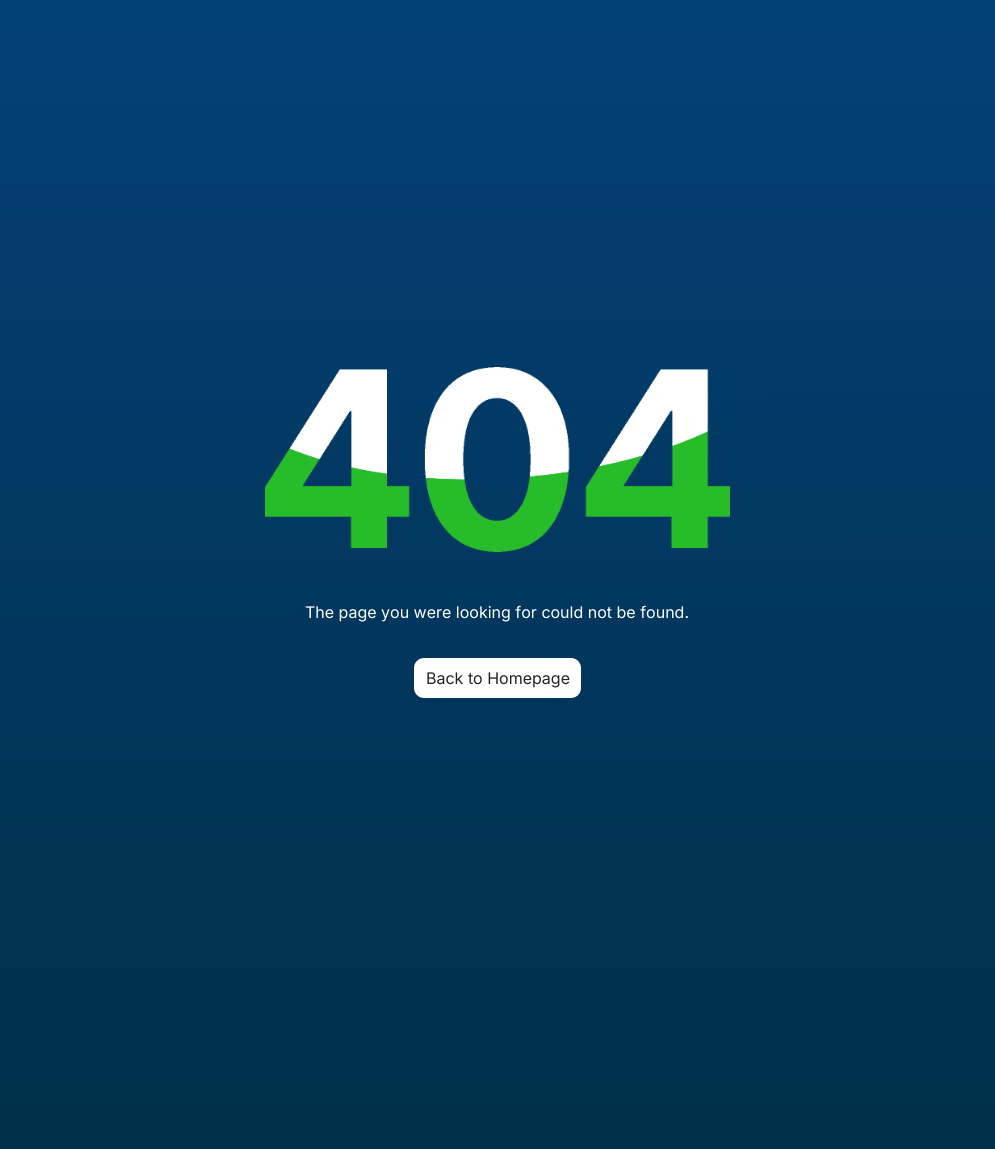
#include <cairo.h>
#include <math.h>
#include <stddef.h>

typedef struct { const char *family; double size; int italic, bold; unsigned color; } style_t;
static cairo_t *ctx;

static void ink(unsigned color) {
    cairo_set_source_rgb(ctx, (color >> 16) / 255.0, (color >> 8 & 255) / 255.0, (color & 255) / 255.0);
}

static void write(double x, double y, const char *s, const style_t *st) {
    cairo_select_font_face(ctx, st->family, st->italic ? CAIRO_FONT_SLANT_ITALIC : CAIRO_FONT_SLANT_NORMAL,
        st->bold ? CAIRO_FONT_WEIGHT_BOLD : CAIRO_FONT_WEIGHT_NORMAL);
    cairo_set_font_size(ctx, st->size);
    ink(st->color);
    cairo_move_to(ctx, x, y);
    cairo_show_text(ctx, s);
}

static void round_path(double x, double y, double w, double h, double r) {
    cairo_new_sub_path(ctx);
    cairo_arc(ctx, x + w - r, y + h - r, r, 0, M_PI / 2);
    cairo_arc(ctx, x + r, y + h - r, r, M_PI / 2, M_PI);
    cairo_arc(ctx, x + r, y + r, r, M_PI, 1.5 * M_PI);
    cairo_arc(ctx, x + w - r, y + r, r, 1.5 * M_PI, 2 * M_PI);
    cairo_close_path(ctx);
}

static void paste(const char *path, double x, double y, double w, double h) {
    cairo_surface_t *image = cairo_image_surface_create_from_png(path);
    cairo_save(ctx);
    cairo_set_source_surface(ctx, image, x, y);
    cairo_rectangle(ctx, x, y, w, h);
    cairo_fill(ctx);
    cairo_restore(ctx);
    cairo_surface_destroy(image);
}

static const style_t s1 = {"Inter", 16, 0, 0, 0xffffff};
static const style_t s2 = {"Inter", 16, 0, 0, 0x232323};

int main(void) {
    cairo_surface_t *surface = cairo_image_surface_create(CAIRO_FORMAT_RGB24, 995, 1149);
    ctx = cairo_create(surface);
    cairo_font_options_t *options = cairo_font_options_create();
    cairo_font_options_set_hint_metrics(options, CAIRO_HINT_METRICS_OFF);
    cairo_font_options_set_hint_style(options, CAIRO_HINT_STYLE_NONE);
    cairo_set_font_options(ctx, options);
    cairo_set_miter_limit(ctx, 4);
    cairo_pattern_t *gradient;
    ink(0xffffff);
    cairo_paint(ctx);
    gradient = cairo_pattern_create_linear(497, 0, 498, 1149);
    cairo_pattern_add_color_stop_rgba(gradient, 0, 0.012, 0.251, 0.467, 1);
    cairo_pattern_add_color_stop_rgba(gradient, 1, 0, 0.188, 0.286, 1);
    cairo_set_source(ctx, gradient);
    cairo_pattern_destroy(gradient);
    cairo_rectangle(ctx, 0, 0, 995, 1149);
    cairo_fill(ctx);
    paste("pic1.png", 265, 367, 465, 185);
    write(305, 618, "The page you were looking for could not be found.", &s1);
    round_path(414, 658, 167, 40, 10);
    cairo_fill(ctx);
    write(426, 684, "Back to Homepage", &s2);
    cairo_surface_write_to_png(surface, "screenshot.png");
    cairo_font_options_destroy(options);
    cairo_destroy(ctx);
    cairo_surface_destroy(surface);
    return 0;
}
